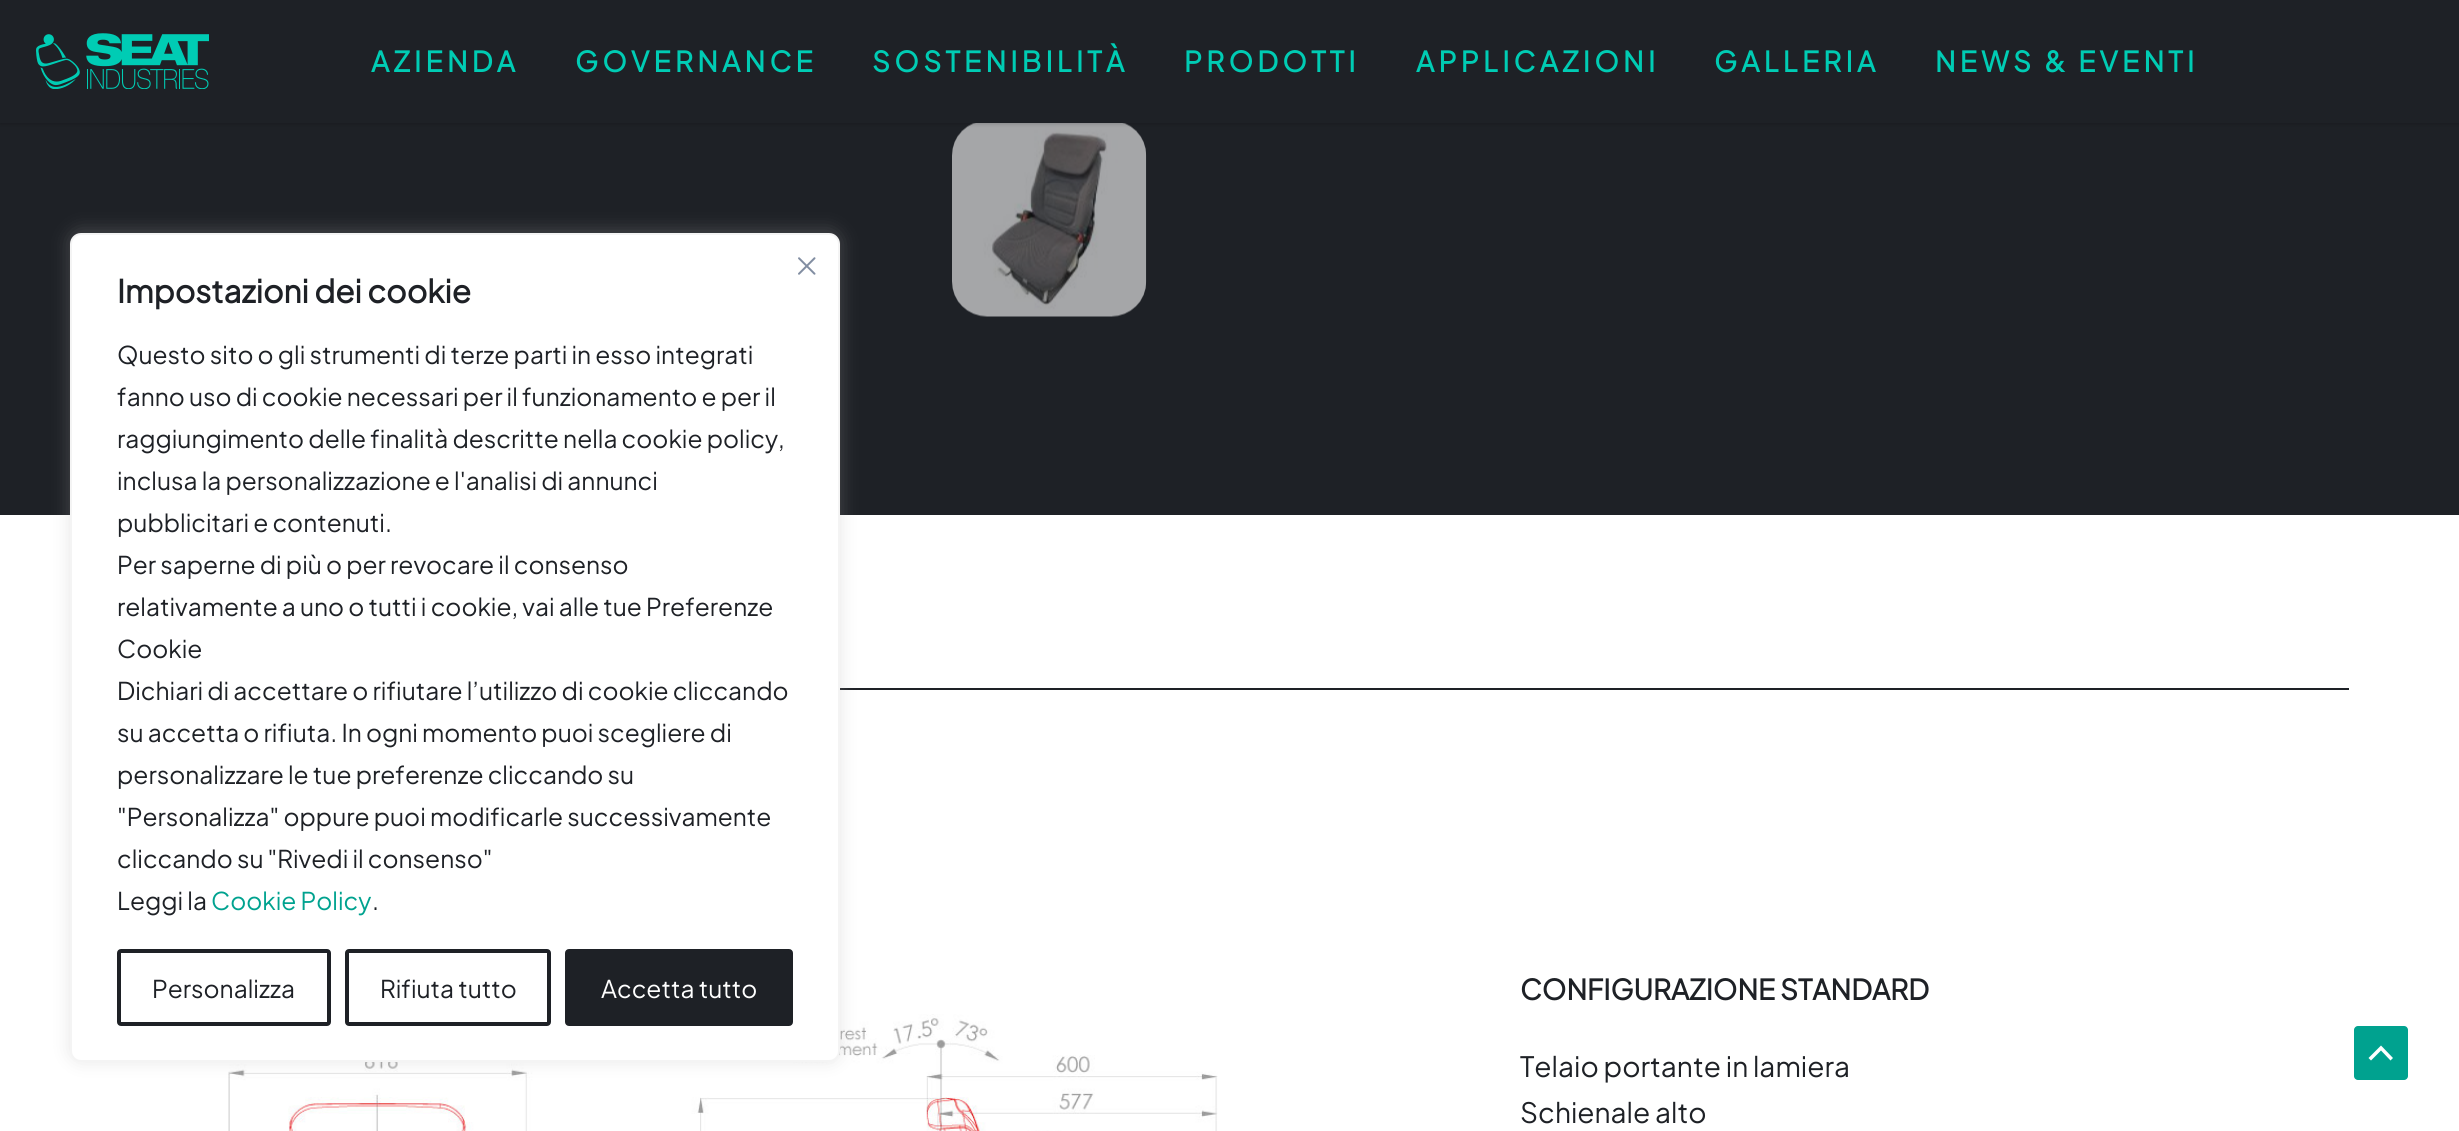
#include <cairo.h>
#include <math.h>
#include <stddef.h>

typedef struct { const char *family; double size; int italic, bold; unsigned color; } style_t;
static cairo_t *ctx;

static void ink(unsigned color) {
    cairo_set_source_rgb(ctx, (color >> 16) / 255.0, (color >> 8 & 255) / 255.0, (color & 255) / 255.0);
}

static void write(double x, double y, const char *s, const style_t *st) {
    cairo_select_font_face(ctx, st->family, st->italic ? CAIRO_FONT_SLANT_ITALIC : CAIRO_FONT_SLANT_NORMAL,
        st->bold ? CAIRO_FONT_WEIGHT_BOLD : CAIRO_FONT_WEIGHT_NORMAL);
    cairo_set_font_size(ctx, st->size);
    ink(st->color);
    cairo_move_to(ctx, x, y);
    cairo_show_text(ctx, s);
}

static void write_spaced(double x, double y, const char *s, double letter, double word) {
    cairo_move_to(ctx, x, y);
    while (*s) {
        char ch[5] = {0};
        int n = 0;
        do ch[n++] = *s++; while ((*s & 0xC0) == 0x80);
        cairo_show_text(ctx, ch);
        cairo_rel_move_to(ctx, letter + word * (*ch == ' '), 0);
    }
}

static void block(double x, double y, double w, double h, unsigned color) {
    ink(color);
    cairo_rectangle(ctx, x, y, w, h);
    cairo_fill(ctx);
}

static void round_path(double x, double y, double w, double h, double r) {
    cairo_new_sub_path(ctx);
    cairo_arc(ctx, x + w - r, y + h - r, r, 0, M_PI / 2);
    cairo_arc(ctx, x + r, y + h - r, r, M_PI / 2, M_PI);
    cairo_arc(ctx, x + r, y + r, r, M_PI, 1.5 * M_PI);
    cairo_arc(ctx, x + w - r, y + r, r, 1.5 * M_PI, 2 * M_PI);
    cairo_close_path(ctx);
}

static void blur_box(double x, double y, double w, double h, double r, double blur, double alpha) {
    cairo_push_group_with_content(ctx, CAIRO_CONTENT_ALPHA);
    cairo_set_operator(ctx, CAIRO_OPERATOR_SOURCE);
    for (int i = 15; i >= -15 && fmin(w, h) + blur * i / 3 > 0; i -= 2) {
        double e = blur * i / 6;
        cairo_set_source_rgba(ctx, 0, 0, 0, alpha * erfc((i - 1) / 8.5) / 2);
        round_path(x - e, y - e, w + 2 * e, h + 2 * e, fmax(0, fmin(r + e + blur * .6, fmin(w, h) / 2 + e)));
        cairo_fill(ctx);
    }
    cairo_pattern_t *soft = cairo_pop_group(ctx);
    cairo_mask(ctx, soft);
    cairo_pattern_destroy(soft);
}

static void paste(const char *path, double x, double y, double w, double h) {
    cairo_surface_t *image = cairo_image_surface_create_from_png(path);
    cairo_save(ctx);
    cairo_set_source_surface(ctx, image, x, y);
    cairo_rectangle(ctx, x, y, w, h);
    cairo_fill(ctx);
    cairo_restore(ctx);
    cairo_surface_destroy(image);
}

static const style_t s1 = {"Plus Jakarta Sans", 28, 0, 1, 0x1e2126};
static const style_t s2 = {"Plus Jakarta Sans", 28, 0, 0, 0x1e2126};
static const style_t s3 = {"Plus Jakarta Sans", 31.5, 0, 1, 0x1e2126};
static const style_t s4 = {"Plus Jakarta Sans", 24.5, 0, 0, 0x1e2126};
static const style_t s5 = {"Plus Jakarta Sans", 24.5, 0, 0, 0x00a28f};
static const style_t s6 = {"Plus Jakarta Sans", 24.5, 0, 0, 0xffffff};

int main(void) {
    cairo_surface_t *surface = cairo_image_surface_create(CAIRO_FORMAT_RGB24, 2459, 1131);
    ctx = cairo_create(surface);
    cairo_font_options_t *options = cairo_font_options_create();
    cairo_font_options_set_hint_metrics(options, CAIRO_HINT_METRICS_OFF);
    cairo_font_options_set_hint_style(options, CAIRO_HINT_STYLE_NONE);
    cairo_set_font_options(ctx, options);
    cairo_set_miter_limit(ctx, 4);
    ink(0xffffff);
    cairo_paint(ctx);
    block(0, 123, 2459, 392, 0x1e2126);
    paste("pic2.png", 952, 123, 195, 194);
    ink(0x000000);
    blur_box(0, 2, 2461, 122, 0, 2, 0.2);
    block(0, 0, 2459, 123, 0x1e2126);
    paste("pic1.png", 36, 33, 173, 56);
    cairo_select_font_face(ctx, "Plus Jakarta Sans", CAIRO_FONT_SLANT_NORMAL, CAIRO_FONT_WEIGHT_BOLD);
    cairo_set_font_size(ctx, 28);
    ink(0x00ccb4);
    write_spaced(371, 72, "AZIENDA", 4.25, 0);
    write_spaced(575, 72, "GOVERNANCE", 4.25, 0);
    write_spaced(872, 72, "SOSTENIBILITÀ", 4.25, 0);
    write_spaced(1184, 72, "PRODOTTI", 4.25, 0);
    write_spaced(1416, 72, "APPLICAZIONI", 4.25, 0);
    write_spaced(1714, 72, "GALLERIA", 4.25, 0);
    write_spaced(1935, 72, "NEWS & EVENTI", 4.25, 0);
    block(840, 688, 1509, 2, 0x1e2126);
    paste("pic3.png", 228, 1014, 990, 117);
    write(1520, 1000, "CONFIGURAZIONE STANDARD", &s1);
    write(1520, 1077, "Telaio portante in lamiera", &s2);
    write(1520, 1123, "Schienale alto", &s2);
    ink(0xacabab);
    blur_box(70, 231, 770, 830, 11, 9, 0.3);
    ink(0xffffff);
    round_path(71, 234, 768, 827, 10);
    cairo_fill_preserve(ctx);
    ink(0xf4f4f4);
    cairo_stroke(ctx);
    paste("pic4.png", 798, 257, 18, 18);
    write(117, 303, "Impostazioni dei cookie", &s3);
    write(117, 364, "Questo sito o gli strumenti di terze parti in esso integrati", &s4);
    write(117, 406, "fanno uso di cookie necessari per il funzionamento e per il", &s4);
    write(117, 448, "raggiungimento delle finalità descritte nella cookie policy,", &s4);
    write(117, 490, "inclusa la personalizzazione e l'analisi di annunci", &s4);
    write(117, 532, "pubblicitari e contenuti.", &s4);
    write(117, 574, "Per saperne di più o per revocare il consenso", &s4);
    write(117, 616, "relativamente a uno o tutti i cookie, vai alle tue Preferenze", &s4);
    write(117, 658, "Cookie", &s4);
    write(117, 700, "Dichiari di accettare o rifiutare l’utilizzo di cookie cliccando", &s4);
    write(117, 742, "su accetta o rifiuta. In ogni momento puoi scegliere di", &s4);
    write(117, 784, "personalizzare le tue preferenze cliccando su", &s4);
    write(117, 826, "\"Personalizza\" oppure puoi modificarle successivamente", &s4);
    write(117, 868, "cliccando su \"Rivedi il consenso\"", &s4);
    write(117, 910, "Leggi la", &s4);
    write(211, 910, "Cookie Policy", &s5);
    write(372, 910, ".", &s4);
    round_path(119, 951, 210, 73, 2);
    cairo_set_line_width(ctx, 4);
    cairo_stroke(ctx);
    write(152, 998, "Personalizza", &s4);
    round_path(347, 951, 202, 73, 2);
    cairo_stroke(ctx);
    write(380, 998, "Rifiuta tutto", &s4);
    round_path(567, 951, 224, 73, 2);
    cairo_fill_preserve(ctx);
    cairo_stroke(ctx);
    write(601, 998, "Accetta tutto", &s6);
    ink(0x00a28f);
    round_path(2354, 1026, 54, 54, 4);
    cairo_fill(ctx);
    ink(0xffffff);
    cairo_new_path(ctx);
    cairo_move_to(ctx, 2393, 1058);
    cairo_line_to(ctx, 2381, 1045.5);
    cairo_line_to(ctx, 2368.5, 1058);
    cairo_line_to(ctx, 2371, 1060.5);
    cairo_line_to(ctx, 2381, 1050.5);
    cairo_line_to(ctx, 2390.5, 1060.5);
    cairo_close_path(ctx);
    cairo_fill(ctx);
    cairo_surface_write_to_png(surface, "screenshot.png");
    cairo_font_options_destroy(options);
    cairo_destroy(ctx);
    cairo_surface_destroy(surface);
    return 0;
}
